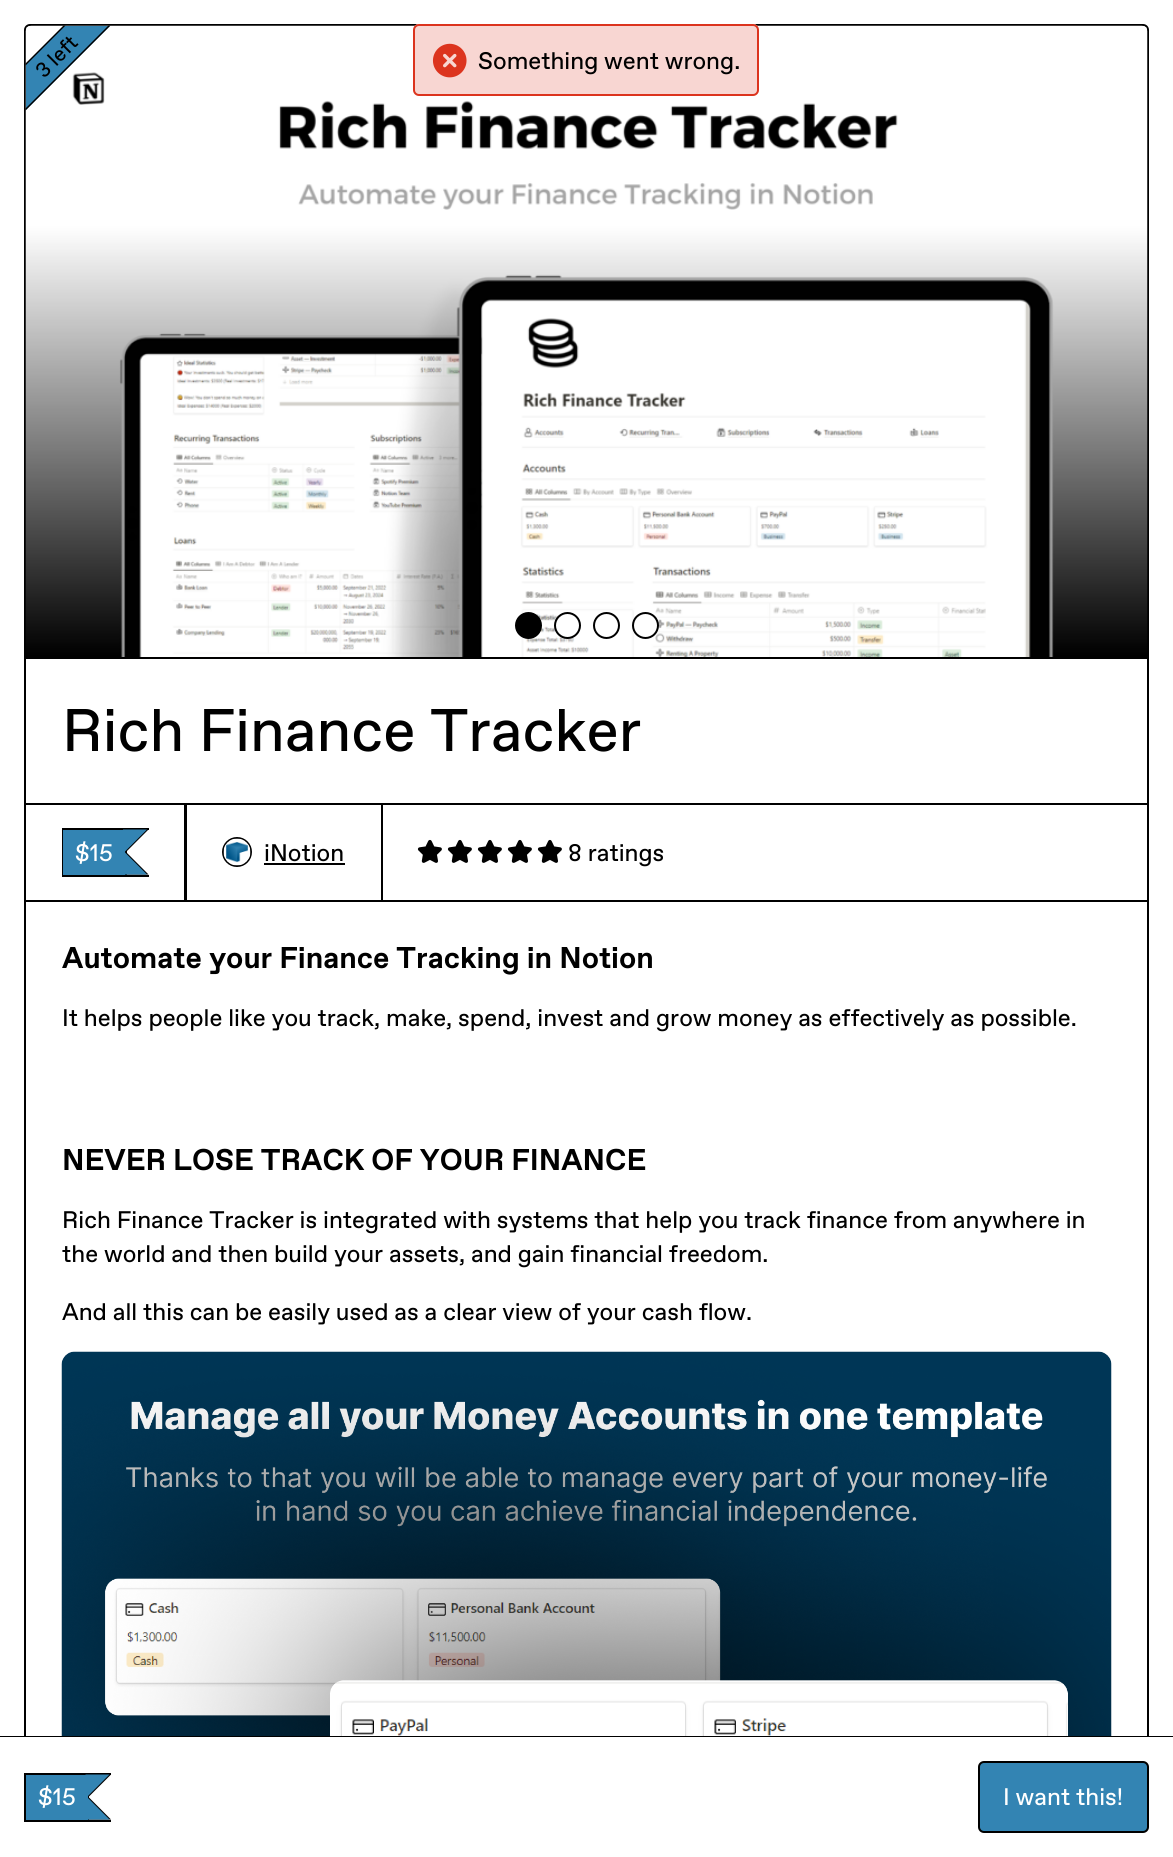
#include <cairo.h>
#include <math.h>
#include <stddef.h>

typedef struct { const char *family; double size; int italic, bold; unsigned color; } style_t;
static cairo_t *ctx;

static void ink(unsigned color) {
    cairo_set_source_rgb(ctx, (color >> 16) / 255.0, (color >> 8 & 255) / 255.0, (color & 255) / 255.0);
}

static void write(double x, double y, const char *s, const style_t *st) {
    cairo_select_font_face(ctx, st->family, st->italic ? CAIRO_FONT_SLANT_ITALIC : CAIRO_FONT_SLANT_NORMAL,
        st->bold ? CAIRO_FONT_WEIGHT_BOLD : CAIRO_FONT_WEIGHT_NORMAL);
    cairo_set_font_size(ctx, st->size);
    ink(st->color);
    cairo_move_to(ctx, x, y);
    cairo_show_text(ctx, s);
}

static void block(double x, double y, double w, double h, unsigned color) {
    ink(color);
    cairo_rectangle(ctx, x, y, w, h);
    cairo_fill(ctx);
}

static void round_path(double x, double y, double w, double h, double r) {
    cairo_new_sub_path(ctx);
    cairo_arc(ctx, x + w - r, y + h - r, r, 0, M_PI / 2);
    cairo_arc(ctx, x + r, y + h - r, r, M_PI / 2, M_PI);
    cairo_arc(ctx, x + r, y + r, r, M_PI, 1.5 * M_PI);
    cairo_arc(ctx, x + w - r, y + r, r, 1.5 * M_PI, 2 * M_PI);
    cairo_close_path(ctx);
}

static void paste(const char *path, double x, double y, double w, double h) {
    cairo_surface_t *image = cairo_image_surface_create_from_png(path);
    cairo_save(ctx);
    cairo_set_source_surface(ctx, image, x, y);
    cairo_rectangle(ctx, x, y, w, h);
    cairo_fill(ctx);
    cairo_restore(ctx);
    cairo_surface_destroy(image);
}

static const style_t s1 = {"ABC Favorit", 21, 0, 0, 0x000000};
static const style_t s2 = {"ABC Favorit", 60, 0, 0, 0x000000};
static const style_t s3 = {"ABC Favorit", 24, 0, 0, 0xffffff};
static const style_t s4 = {"ABC Favorit", 24, 0, 0, 0x000000};
static const style_t s5 = {"ABC Favorit", 30, 0, 1, 0x000000};

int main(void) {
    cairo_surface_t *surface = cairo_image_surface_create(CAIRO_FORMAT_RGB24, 1173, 1857);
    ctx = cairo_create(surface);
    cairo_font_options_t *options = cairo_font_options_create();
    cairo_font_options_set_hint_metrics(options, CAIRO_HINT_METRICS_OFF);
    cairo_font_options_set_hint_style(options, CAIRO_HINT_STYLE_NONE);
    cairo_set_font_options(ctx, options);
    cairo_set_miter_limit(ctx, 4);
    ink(0xffffff);
    cairo_paint(ctx);
    round_path(25, 25, 1123, 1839, 5);
    ink(0x000000);
    cairo_stroke(ctx);
    block(26, 657, 1122, 2, 0x000000);
    paste("pic1.png", 25, 25, 1123, 632);
    cairo_arc(ctx, 528.5, 625.5, 12.5, 0, 2 * M_PI);
    cairo_fill_preserve(ctx);
    cairo_stroke(ctx);
    ink(0xffffff);
    cairo_arc(ctx, 567.5, 625.5, 12.5, 0, 2 * M_PI);
    cairo_fill_preserve(ctx);
    ink(0x000000);
    cairo_stroke(ctx);
    cairo_arc(ctx, 606.5, 625.5, 12.5, 0, 2 * M_PI);
    cairo_stroke(ctx);
    ink(0xffffff);
    cairo_arc(ctx, 645.5, 625.5, 12.5, 0, 2 * M_PI);
    cairo_fill_preserve(ctx);
    ink(0x000000);
    cairo_stroke(ctx);
    ink(0x3384b3);
    cairo_new_path(ctx);
    cairo_move_to(ctx, 26, 64);
    cairo_line_to(ctx, 64, 26);
    cairo_line_to(ctx, 110, 26);
    cairo_line_to(ctx, 26, 110);
    cairo_close_path(ctx);
    cairo_fill(ctx);
    cairo_save(ctx);
    cairo_new_path(ctx);
    cairo_move_to(ctx, 25.5, 63.5);
    cairo_line_to(ctx, 63.5, 25.5);
    cairo_line_to(ctx, 110.5, 25.5);
    cairo_line_to(ctx, 25.5, 110.5);
    cairo_close_path(ctx);
    cairo_clip(ctx);
    cairo_new_path(ctx);
    cairo_move_to(ctx, 3, 87);
    cairo_line_to(ctx, 87, 3);
    cairo_line_to(ctx, 109.5, 25.5);
    cairo_line_to(ctx, 25.5, 109.5);
    cairo_close_path(ctx);
    ink(0x000000);
    cairo_set_line_width(ctx, 1.5);
    cairo_stroke(ctx);
    cairo_restore(ctx);
    cairo_save(ctx);
    cairo_translate(ctx, 56, 67);
    cairo_rotate(ctx, -45 * M_PI / 180);
    write(0, 0, "left", &s1);
    cairo_restore(ctx);
    cairo_save(ctx);
    cairo_translate(ctx, 44, 79);
    cairo_rotate(ctx, -45 * M_PI / 180);
    write(0, 0, "3", &s1);
    cairo_restore(ctx);
    write(62, 751, "Rich Finance Tracker", &s2);
    block(383, 803, 765, 2, 0x000000);
    cairo_rectangle(ctx, 25, 804, 160, 97);
    cairo_stroke(ctx);
    block(62, 828, 87, 2, 0x000000);
    block(62, 875, 87, 2, 0x000000);
    block(62, 828, 2, 48, 0x000000);
    cairo_new_path(ctx);
    cairo_move_to(ctx, 124.5, 829.5);
    cairo_line_to(ctx, 148.5, 829.5);
    cairo_line_to(ctx, 126, 852);
    cairo_close_path(ctx);
    cairo_move_to(ctx, 148.5, 874.5);
    cairo_line_to(ctx, 124.5, 874.5);
    cairo_line_to(ctx, 126, 852);
    cairo_close_path(ctx);
    cairo_fill(ctx);
    block(125, 849, 2, 26, 0x000000);
    ink(0x3384b3);
    cairo_new_path(ctx);
    cairo_move_to(ctx, 123, 829.5);
    cairo_line_to(ctx, 147, 829.5);
    cairo_line_to(ctx, 124.5, 852);
    cairo_close_path(ctx);
    cairo_move_to(ctx, 147, 874.5);
    cairo_line_to(ctx, 123, 874.5);
    cairo_line_to(ctx, 124.5, 852);
    cairo_close_path(ctx);
    cairo_fill(ctx);
    block(123, 830, 2, 45, 0x3384b3);
    block(63, 830, 60, 45, 0x3384b3);
    write(75, 861, "$15", &s3);
    cairo_rectangle(ctx, 186, 804, 196, 97);
    ink(0x000000);
    cairo_stroke(ctx);
    cairo_arc(ctx, 237, 852, 14, 0, 2 * M_PI);
    cairo_stroke(ctx);
    paste("pic2.png", 223, 838, 28, 28);
    write(264, 861, "iNotion", &s4);
    block(264, 863, 81, 2, 0x000000);
    paste("pic3.png", 417, 839, 25, 24);
    paste("pic3.png", 447, 839, 25, 24);
    paste("pic3.png", 477, 839, 25, 24);
    paste("pic3.png", 507, 839, 25, 24);
    paste("pic3.png", 537, 839, 25, 24);
    write(568, 861, "8 ratings", &s4);
    block(383, 900, 765, 2, 0x000000);
    write(62, 968, "Automate your Finance Tracking in Notion", &s5);
    write(62, 1026, "It helps people like you track, make, spend, invest and grow money as effectively as possible.", &s4);
    write(62, 1170, "NEVER LOSE TRACK OF YOUR FINANCE", &s5);
    write(62, 1228, "Rich Finance Tracker is integrated with systems that help you track finance from anywhere in", &s4);
    write(62, 1262, "the world and then build your assets, and gain financial freedom.", &s4);
    write(62, 1320, "And all this can be easily used as a clear view of your cash flow.", &s4);
    paste("pic4.png", 61, 1351, 1051, 385);
    block(0, 1736, 1173, 1, 0x000000);
    block(24, 1737, 1125, 120, 0xffffff);
    block(24, 1773, 87, 2, 0x000000);
    block(24, 1820, 87, 2, 0x000000);
    block(24, 1773, 2, 48, 0x000000);
    block(26, 1775, 60, 45, 0x3384b3);
    ink(0x000000);
    cairo_new_path(ctx);
    cairo_move_to(ctx, 87, 1774.5);
    cairo_line_to(ctx, 111, 1774.5);
    cairo_line_to(ctx, 88.5, 1797);
    cairo_close_path(ctx);
    cairo_move_to(ctx, 111, 1819.5);
    cairo_line_to(ctx, 87, 1819.5);
    cairo_line_to(ctx, 88.5, 1797);
    cairo_close_path(ctx);
    cairo_fill(ctx);
    block(88, 1795, 1, 25, 0x000000);
    ink(0x3384b3);
    cairo_new_path(ctx);
    cairo_move_to(ctx, 85.5, 1774.5);
    cairo_line_to(ctx, 109.5, 1774.5);
    cairo_line_to(ctx, 87, 1797);
    cairo_close_path(ctx);
    cairo_move_to(ctx, 109.5, 1819.5);
    cairo_line_to(ctx, 85.5, 1819.5);
    cairo_line_to(ctx, 87, 1797);
    cairo_close_path(ctx);
    cairo_fill(ctx);
    block(86, 1775, 2, 45, 0x3384b3);
    write(38, 1805, "$15", &s3);
    ink(0x3384b3);
    round_path(979, 1762, 169, 70, 5);
    cairo_fill_preserve(ctx);
    ink(0x000000);
    cairo_stroke(ctx);
    write(1003, 1805, "I want this!", &s3);
    round_path(413, 24, 346, 72, 6);
    cairo_fill(ctx);
    cairo_set_source_rgba(ctx, 0.863, 0.204, 0.118, 0.2);
    round_path(414, 25, 344, 70, 5);
    cairo_fill_preserve(ctx);
    ink(0xdc341e);
    cairo_stroke(ctx);
    paste("pic5.png", 432, 43, 35, 35);
    write(478, 69, "Something went wrong.", &s4);
    cairo_surface_write_to_png(surface, "screenshot.png");
    cairo_font_options_destroy(options);
    cairo_destroy(ctx);
    cairo_surface_destroy(surface);
    return 0;
}
